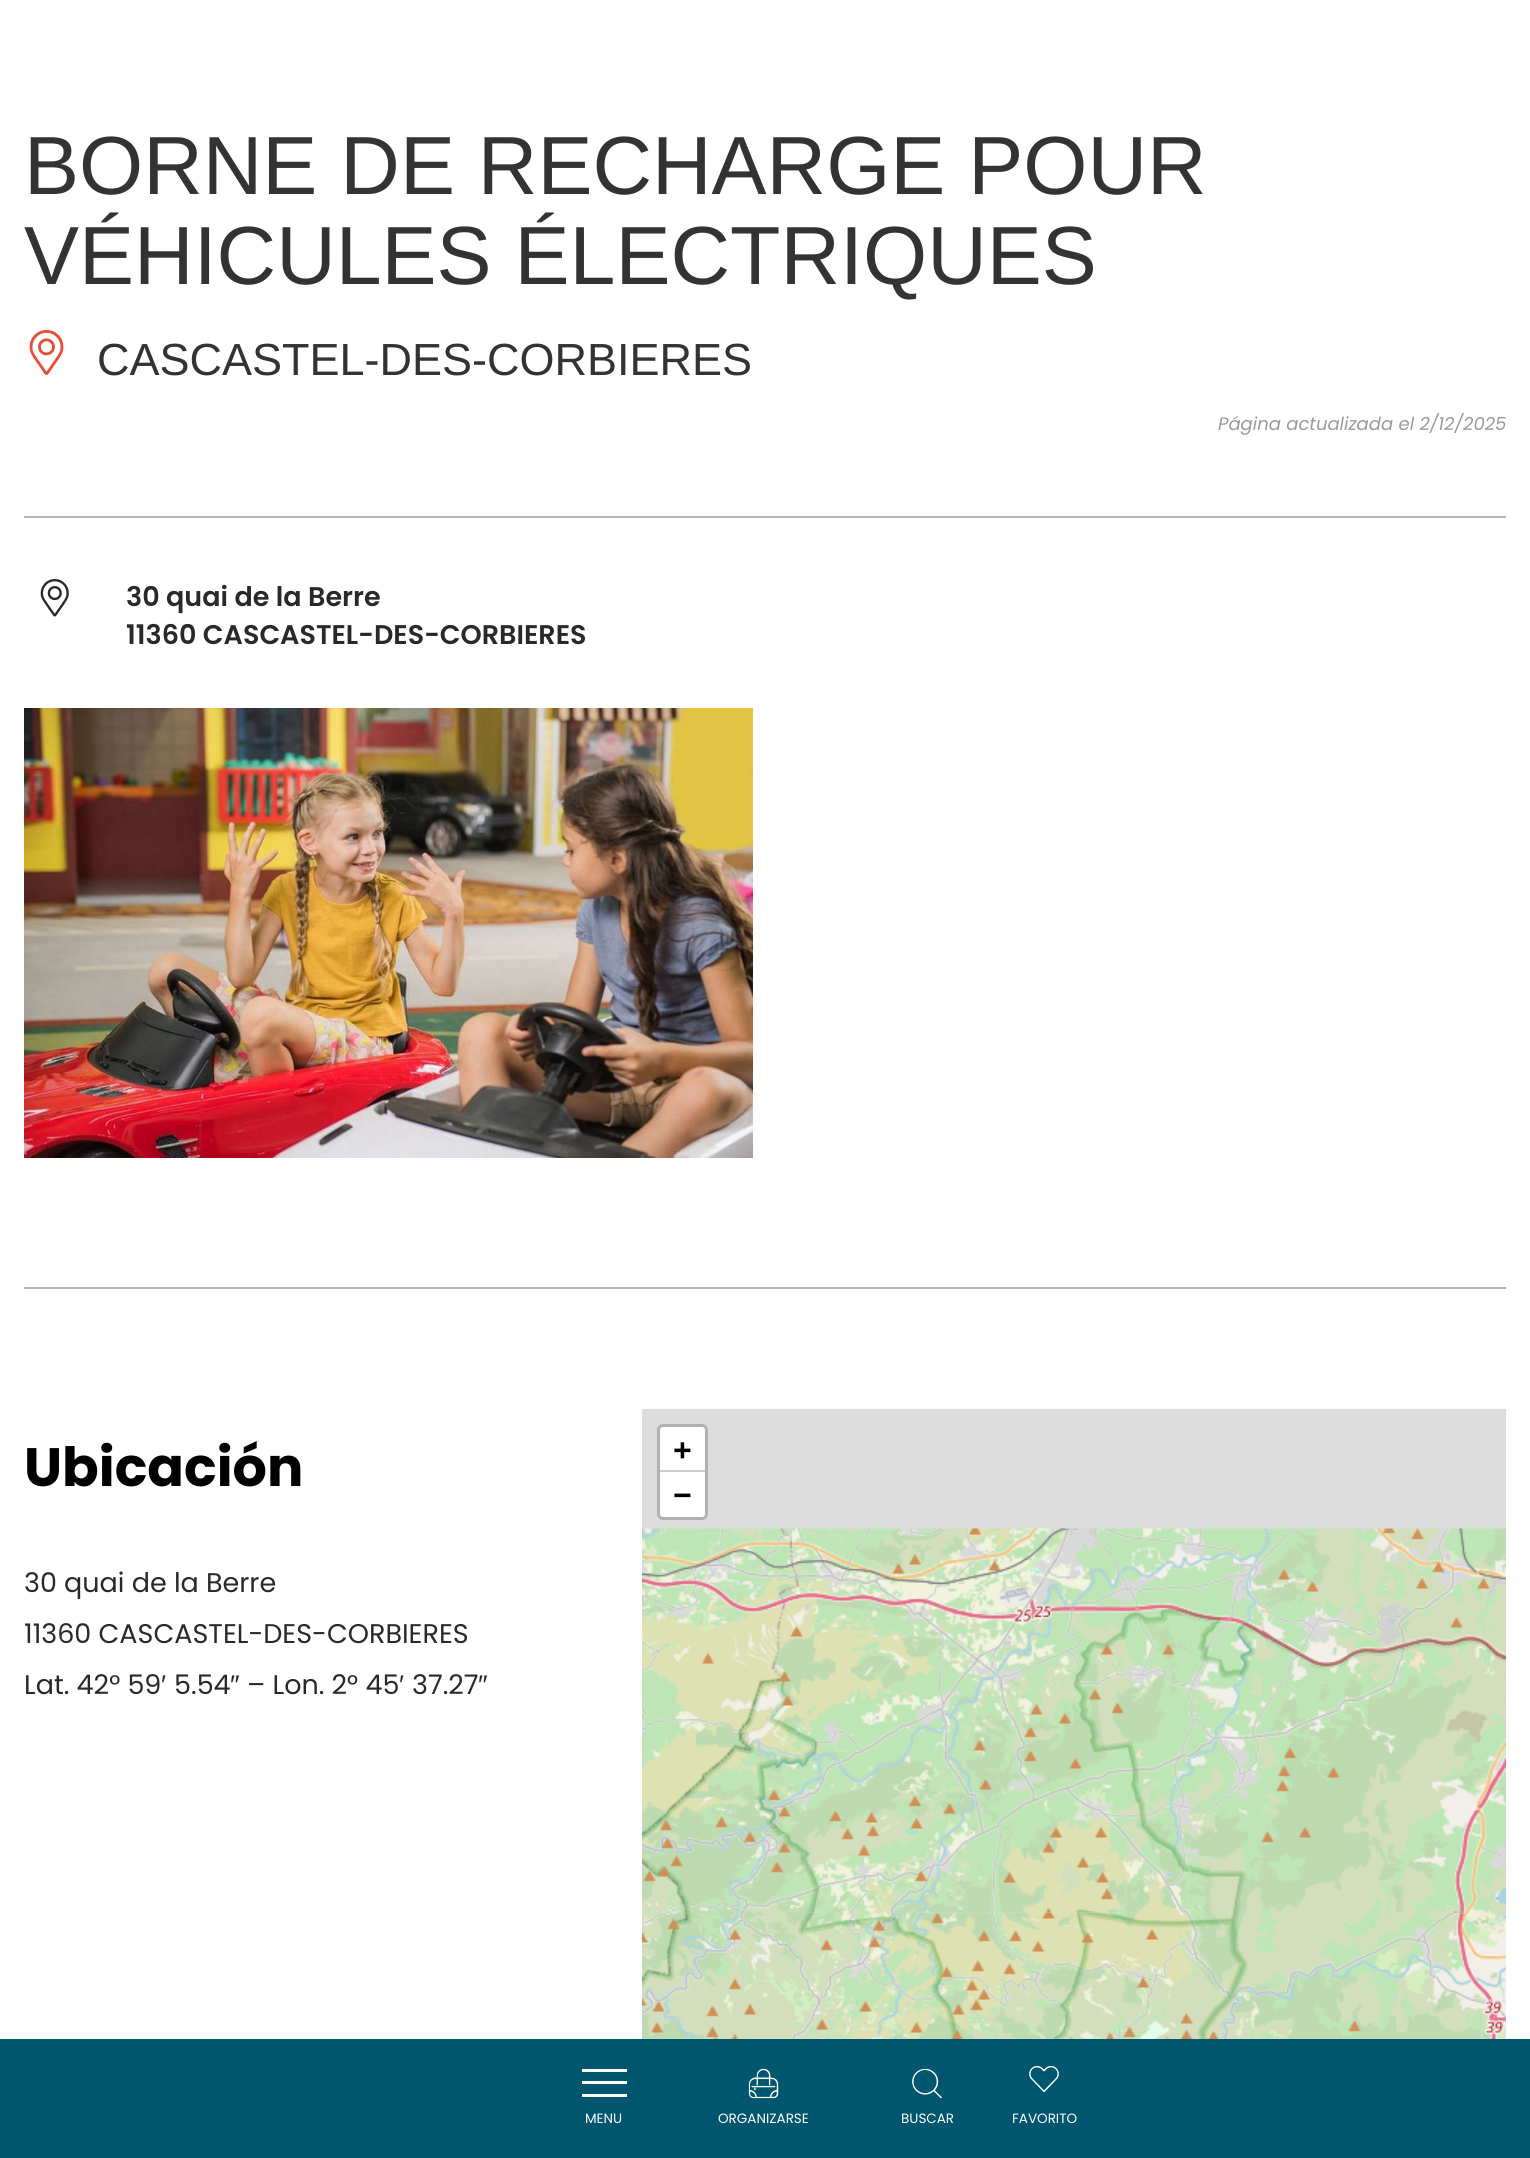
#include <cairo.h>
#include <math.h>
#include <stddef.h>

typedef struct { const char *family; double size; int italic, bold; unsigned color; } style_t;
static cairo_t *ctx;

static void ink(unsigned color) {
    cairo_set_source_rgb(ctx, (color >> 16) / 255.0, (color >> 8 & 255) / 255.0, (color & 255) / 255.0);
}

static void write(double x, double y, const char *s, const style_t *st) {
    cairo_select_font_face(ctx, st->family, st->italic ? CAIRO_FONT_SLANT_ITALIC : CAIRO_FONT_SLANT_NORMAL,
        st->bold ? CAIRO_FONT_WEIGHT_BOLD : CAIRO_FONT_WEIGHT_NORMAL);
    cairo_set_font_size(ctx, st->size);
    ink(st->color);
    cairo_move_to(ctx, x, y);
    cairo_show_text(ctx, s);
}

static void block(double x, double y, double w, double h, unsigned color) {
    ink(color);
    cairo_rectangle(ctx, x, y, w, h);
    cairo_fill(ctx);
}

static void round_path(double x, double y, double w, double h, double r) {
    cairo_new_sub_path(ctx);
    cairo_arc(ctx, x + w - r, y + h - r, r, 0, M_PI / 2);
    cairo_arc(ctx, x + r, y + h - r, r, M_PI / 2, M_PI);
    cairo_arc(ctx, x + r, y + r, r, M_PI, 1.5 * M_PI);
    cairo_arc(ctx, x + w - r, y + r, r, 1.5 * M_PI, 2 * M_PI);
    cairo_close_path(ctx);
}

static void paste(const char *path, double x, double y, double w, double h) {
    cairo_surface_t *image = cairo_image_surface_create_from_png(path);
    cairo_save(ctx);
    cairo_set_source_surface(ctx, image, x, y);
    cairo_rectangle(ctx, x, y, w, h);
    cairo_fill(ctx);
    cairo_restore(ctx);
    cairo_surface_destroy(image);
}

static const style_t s1 = {"Liberation Sans", 82.5, 0, 0, 0x333333};
static const style_t s2 = {"Liberation Sans", 45, 0, 0, 0x333333};
static const style_t s3 = {"Poppins", 18, 1, 0, 0x9a9a9a};
static const style_t s4 = {"Poppins SemiBold", 27, 0, 0, 0x292929};
static const style_t s5 = {"Poppins", 54, 0, 1, 0x000000};
static const style_t s6 = {"Poppins", 27, 0, 0, 0x292929};
static const style_t s7 = {"Liberation Sans", 27, 0, 0, 0x292929};
static const style_t s8 = {"Open Sans", 33, 0, 1, 0x000000};
static const style_t s9 = {"Poppins", 13.5, 0, 0, 0xffffff};

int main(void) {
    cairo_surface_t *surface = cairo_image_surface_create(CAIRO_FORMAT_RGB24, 1530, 2158);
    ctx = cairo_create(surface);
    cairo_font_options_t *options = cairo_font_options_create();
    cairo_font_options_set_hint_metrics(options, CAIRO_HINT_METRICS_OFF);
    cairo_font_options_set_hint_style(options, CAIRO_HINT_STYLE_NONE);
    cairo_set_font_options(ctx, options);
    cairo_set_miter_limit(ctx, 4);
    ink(0xffffff);
    cairo_paint(ctx);
    write(24, 194, "BORNE DE RECHARGE POUR", &s1);
    write(24, 284, "VÉHICULES ÉLECTRIQUES", &s1);
    paste("pic1.png", 29, 330, 35, 45);
    write(97, 375, "CASCASTEL-DES-CORBIERES", &s2);
    write(1218, 430, "Página actualizada el 2/12/2025", &s3);
    block(24, 516, 1482, 2, 0xb6b6b6);
    paste("pic2.png", 40, 579, 29, 38);
    write(126, 606, "30 quai de la Berre", &s4);
    write(126, 644, "11360 CASCASTEL-DES-CORBIERES", &s4);
    paste("pic3.png", 24, 708, 729, 450);
    block(24, 1287, 1482, 2, 0xb6b6b6);
    write(24, 1486, "Ubicación", &s5);
    write(24, 1592, "30 quai de la Berre", &s6);
    write(24, 1643, "11360 CASCASTEL-DES-CORBIERES", &s6);
    write(24, 1694, "Lat. 42° 59", &s6);
    write(161, 1694, "′", &s7);
    write(174, 1694, "5.54", &s6);
    write(230, 1694, "″", &s7);
    write(247, 1694, "– Lon. 2° 45", &s6);
    write(399, 1694, "′", &s7);
    write(412, 1694, "37.27", &s6);
    write(478, 1694, "″", &s7);
    block(642, 1409, 864, 630, 0xdddddd);
    round_path(658.5, 1425.5, 48, 93, 4.5);
    ink(0xb1b1b1);
    cairo_set_line_width(ctx, 3);
    cairo_stroke(ctx);
    ink(0xffffff);
    cairo_new_path(ctx);
    cairo_move_to(ctx, 663, 1427);
    cairo_line_to(ctx, 702, 1427);
    cairo_curve_to(ctx, 703.5, 1427, 705, 1428.5, 705, 1430);
    cairo_line_to(ctx, 705, 1472);
    cairo_line_to(ctx, 660, 1472);
    cairo_line_to(ctx, 660, 1430);
    cairo_curve_to(ctx, 660, 1428.5, 661.5, 1427, 663, 1427);
    cairo_close_path(ctx);
    cairo_fill(ctx);
    block(660, 1470, 45, 2, 0xcccccc);
    write(673, 1462, "+", &s8);
    ink(0xffffff);
    cairo_new_path(ctx);
    cairo_move_to(ctx, 660, 1472);
    cairo_line_to(ctx, 705, 1472);
    cairo_line_to(ctx, 705, 1514);
    cairo_curve_to(ctx, 705, 1515.5, 703.5, 1517, 702, 1517);
    cairo_line_to(ctx, 663, 1517);
    cairo_curve_to(ctx, 661.5, 1517, 660, 1515.5, 660, 1514);
    cairo_close_path(ctx);
    cairo_fill(ctx);
    write(673, 1507, "−", &s8);
    paste("pic8.png", 804, 1912, 384, 127);
    paste("pic5.png", 803, 1528, 385, 385);
    paste("pic4.png", 642, 1528, 162, 385);
    paste("pic9.png", 1187, 1912, 319, 127);
    paste("pic6.png", 1187, 1528, 319, 385);
    paste("pic7.png", 642, 1913, 162, 126);
    block(0, 2039, 1530, 119, 0x00566f);
    block(582, 2081, 45, 3, 0xffffff);
    block(582, 2069, 45, 3, 0xffffff);
    block(582, 2094, 45, 3, 0xffffff);
    write(585, 2123, "MENU", &s9);
    paste("pic10.png", 748, 2068, 31, 31);
    write(718, 2123, "ORGANIZARSE", &s9);
    paste("pic11.png", 912, 2068, 30, 31);
    write(901, 2123, "BUSCAR", &s9);
    paste("pic12.png", 1029, 2065, 30, 28);
    write(1012, 2123, "FAVORITO", &s9);
    cairo_surface_write_to_png(surface, "screenshot.png");
    cairo_font_options_destroy(options);
    cairo_destroy(ctx);
    cairo_surface_destroy(surface);
    return 0;
}
